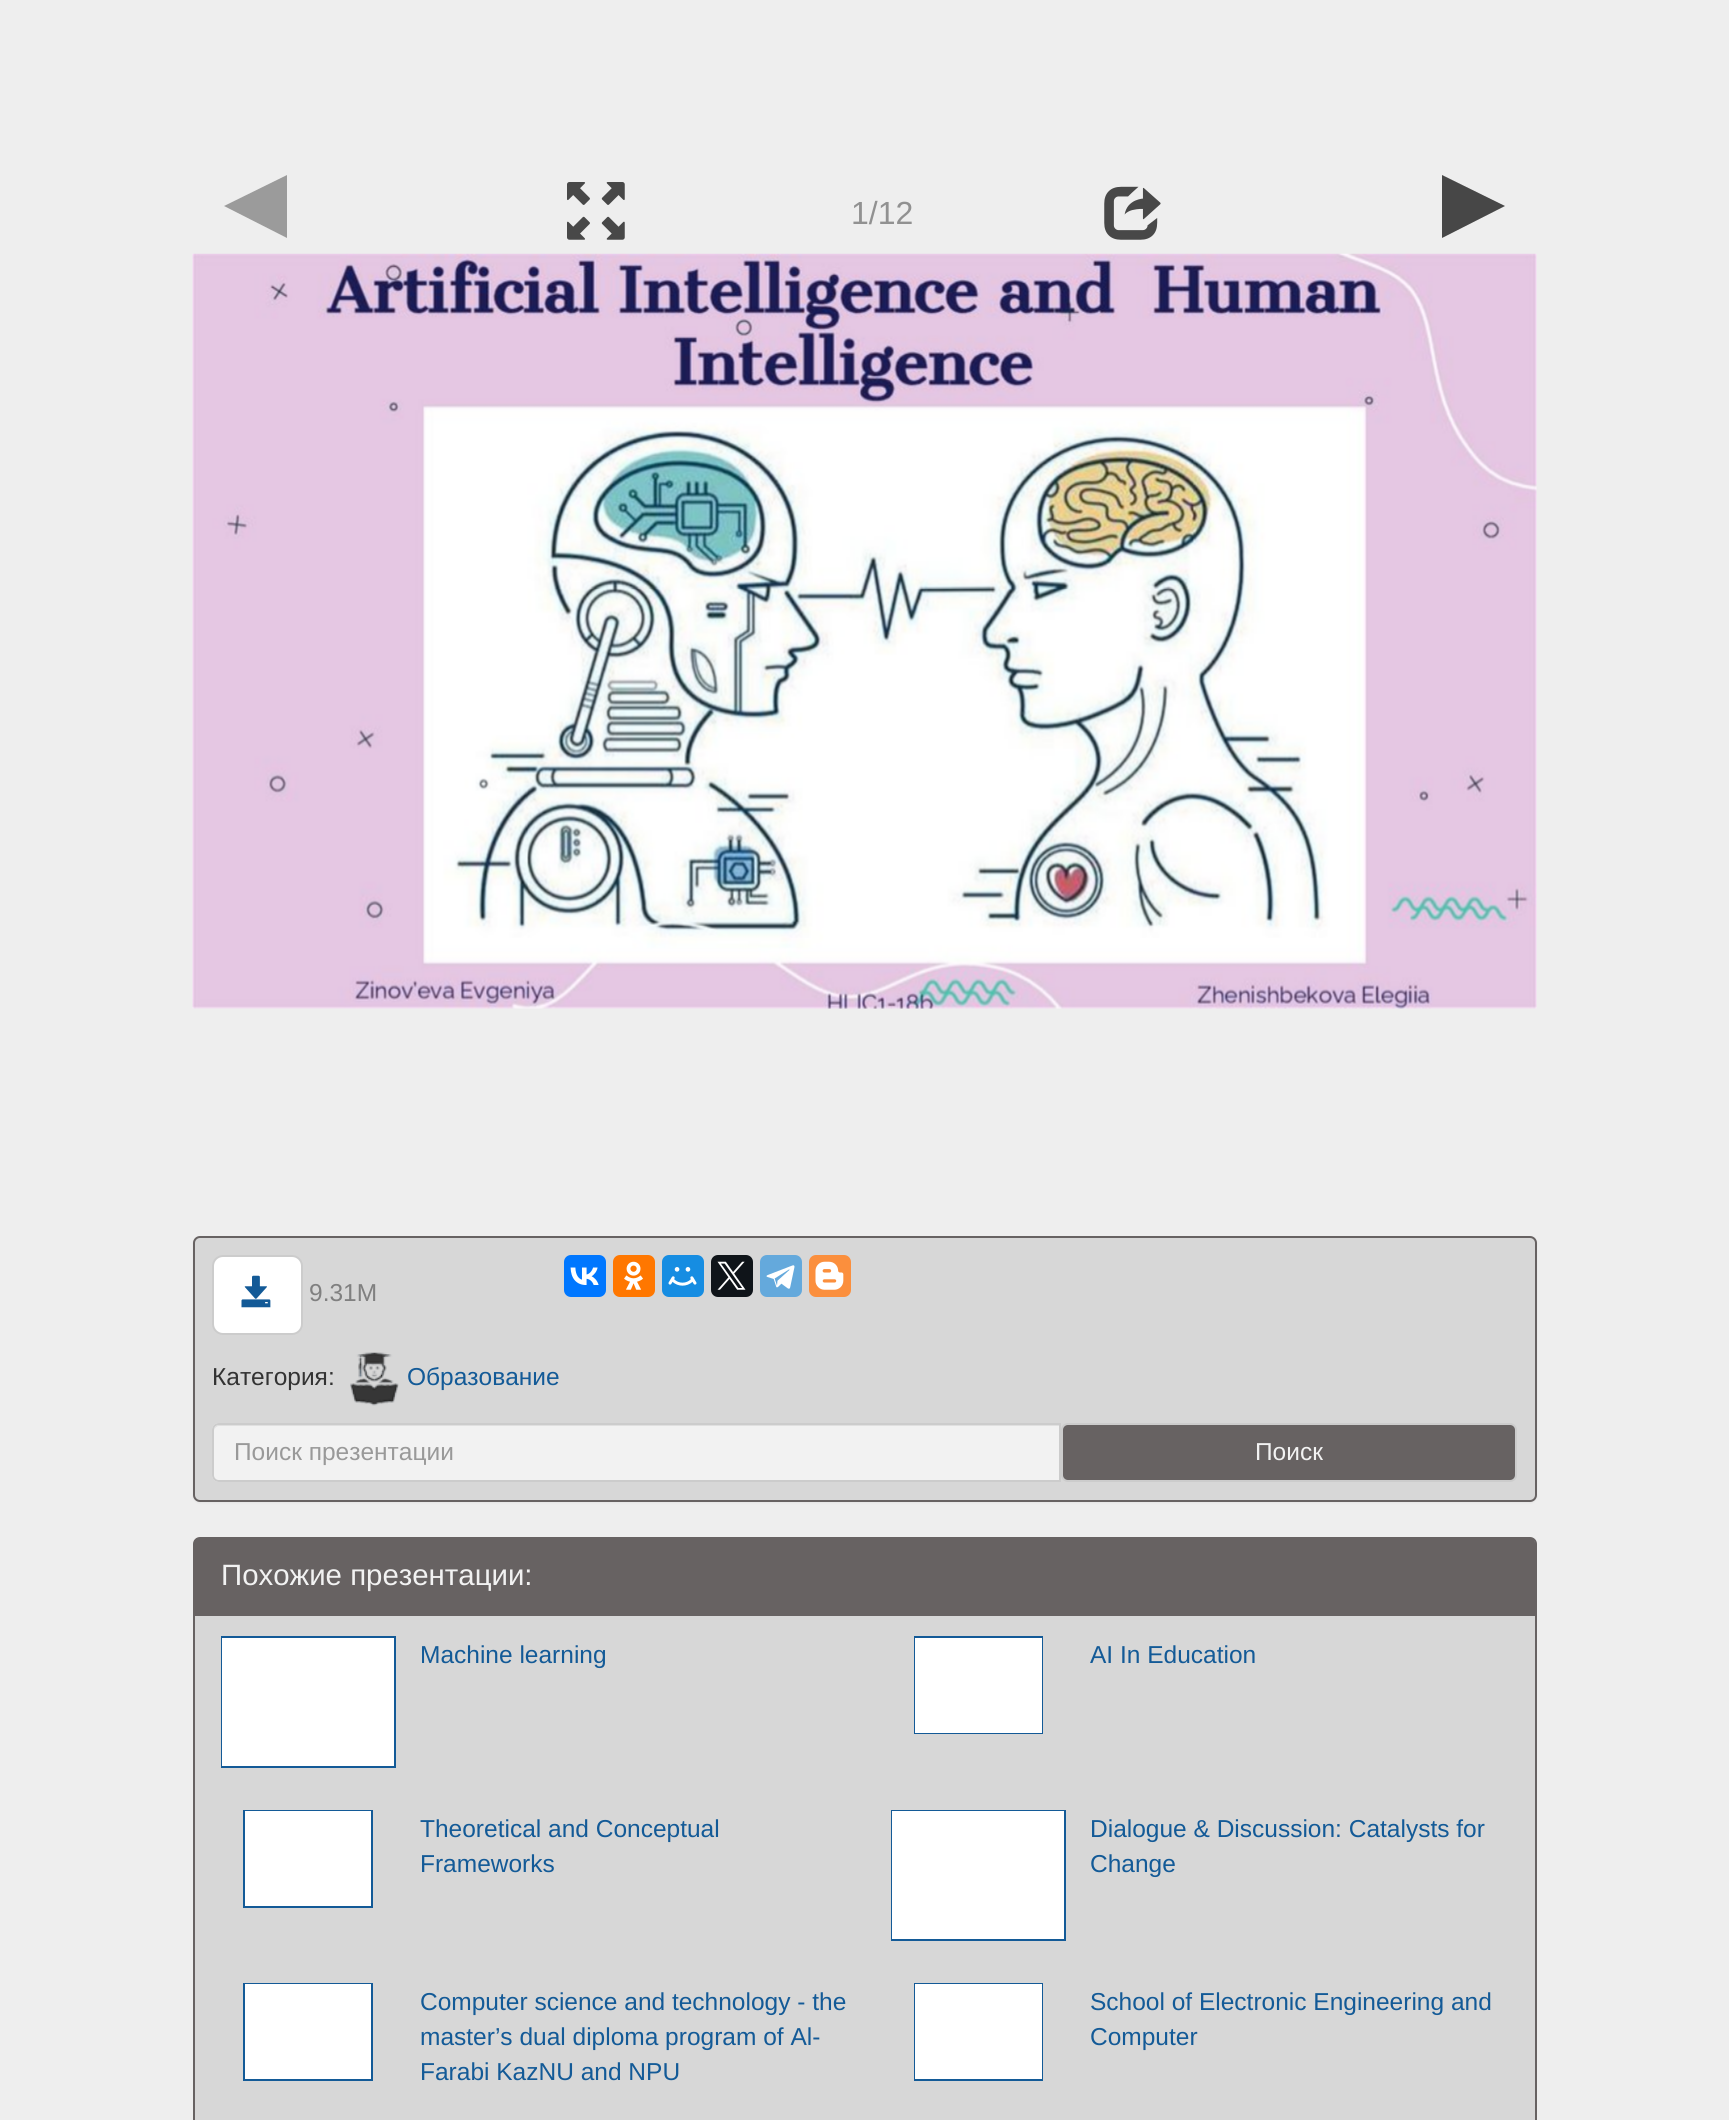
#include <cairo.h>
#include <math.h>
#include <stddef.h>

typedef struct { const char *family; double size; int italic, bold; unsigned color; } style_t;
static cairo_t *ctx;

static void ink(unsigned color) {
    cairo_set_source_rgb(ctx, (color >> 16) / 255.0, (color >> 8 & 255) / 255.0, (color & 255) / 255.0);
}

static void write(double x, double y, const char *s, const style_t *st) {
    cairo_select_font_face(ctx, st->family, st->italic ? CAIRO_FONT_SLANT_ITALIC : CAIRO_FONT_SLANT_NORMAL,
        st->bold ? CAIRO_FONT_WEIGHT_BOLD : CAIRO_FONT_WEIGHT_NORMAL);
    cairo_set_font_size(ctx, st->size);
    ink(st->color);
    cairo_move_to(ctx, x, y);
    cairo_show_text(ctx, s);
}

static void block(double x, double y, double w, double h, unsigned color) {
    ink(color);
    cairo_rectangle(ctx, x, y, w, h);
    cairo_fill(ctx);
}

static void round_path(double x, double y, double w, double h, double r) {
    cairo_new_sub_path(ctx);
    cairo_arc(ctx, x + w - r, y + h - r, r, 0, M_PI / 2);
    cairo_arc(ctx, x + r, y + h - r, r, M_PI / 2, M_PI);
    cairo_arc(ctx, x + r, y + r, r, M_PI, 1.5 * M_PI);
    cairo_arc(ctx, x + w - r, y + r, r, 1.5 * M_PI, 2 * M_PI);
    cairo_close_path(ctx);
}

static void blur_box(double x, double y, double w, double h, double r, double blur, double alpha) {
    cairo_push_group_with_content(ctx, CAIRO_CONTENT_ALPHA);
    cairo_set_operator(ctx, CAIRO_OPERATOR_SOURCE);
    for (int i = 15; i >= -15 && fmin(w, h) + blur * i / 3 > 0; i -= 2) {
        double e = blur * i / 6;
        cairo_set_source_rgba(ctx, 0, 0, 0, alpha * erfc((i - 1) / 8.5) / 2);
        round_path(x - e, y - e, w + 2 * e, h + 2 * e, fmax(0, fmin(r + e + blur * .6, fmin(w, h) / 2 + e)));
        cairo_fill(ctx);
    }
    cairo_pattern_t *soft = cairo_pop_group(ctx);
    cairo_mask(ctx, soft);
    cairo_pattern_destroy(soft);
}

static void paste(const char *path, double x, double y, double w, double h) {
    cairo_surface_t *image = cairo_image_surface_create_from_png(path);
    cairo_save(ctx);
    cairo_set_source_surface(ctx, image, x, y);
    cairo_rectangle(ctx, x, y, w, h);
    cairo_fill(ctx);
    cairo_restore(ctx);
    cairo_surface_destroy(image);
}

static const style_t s1 = {"Liberation Sans", 32, 0, 0, 0x919191};
static const style_t s2 = {"Liberation Sans", 24.5, 0, 0, 0x808080};
static const style_t s3 = {"Liberation Sans", 24.5, 0, 0, 0x333333};
static const style_t s4 = {"Liberation Sans", 24.5, 0, 0, 0x135a97};
static const style_t s5 = {"Liberation Sans", 24.5, 0, 0, 0x999999};
static const style_t s6 = {"Liberation Sans", 24.5, 0, 0, 0xf2f2f2};
static const style_t s7 = {"Liberation Sans", 29.4, 0, 0, 0xf2f2f2};

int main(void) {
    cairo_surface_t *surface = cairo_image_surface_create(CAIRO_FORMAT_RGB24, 1729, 2120);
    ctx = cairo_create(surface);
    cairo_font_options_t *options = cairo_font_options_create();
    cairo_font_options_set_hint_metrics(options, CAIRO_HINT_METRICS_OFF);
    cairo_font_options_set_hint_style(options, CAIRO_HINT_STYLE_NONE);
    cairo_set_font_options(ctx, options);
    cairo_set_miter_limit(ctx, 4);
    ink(0xeeeeee);
    cairo_paint(ctx);
    ink(0x9b9b9b);
    cairo_new_path(ctx);
    cairo_move_to(ctx, 287, 175);
    cairo_line_to(ctx, 287, 238);
    cairo_line_to(ctx, 224, 206);
    cairo_close_path(ctx);
    cairo_fill(ctx);
    paste("pic1.png", 567, 182, 58, 58);
    paste("pic2.png", 1104, 186, 57, 54);
    ink(0x474747);
    cairo_new_path(ctx);
    cairo_move_to(ctx, 1442, 238);
    cairo_line_to(ctx, 1442, 175);
    cairo_line_to(ctx, 1505, 206);
    cairo_close_path(ctx);
    cairo_fill(ctx);
    write(851, 224, "1/12", &s1);
    paste("pic3.png", 192, 253, 1345, 756);
    ink(0x000000);
    blur_box(193, 1237, 1344, 266, 7, 1, 0.05);
    ink(0xd7d7d7);
    round_path(194, 1237, 1342, 264, 6);
    cairo_fill_preserve(ctx);
    ink(0x676262);
    cairo_stroke(ctx);
    ink(0xffffff);
    round_path(213, 1256, 89, 78, 10);
    cairo_fill_preserve(ctx);
    ink(0xcccccc);
    cairo_stroke(ctx);
    paste("pic4.png", 241, 1275, 30, 33);
    write(309, 1301, "9.31M", &s2);
    ink(0x0077ff);
    round_path(564, 1255, 42, 42, 7);
    cairo_fill(ctx);
    paste("pic5.png", 570, 1267, 29, 18);
    ink(0xff7700);
    round_path(613, 1255, 42, 42, 7);
    cairo_fill(ctx);
    paste("pic6.png", 624, 1261, 19, 29);
    ink(0x168de2);
    round_path(662, 1255, 42, 42, 7);
    cairo_fill(ctx);
    paste("pic7.png", 668, 1267, 29, 19);
    ink(0x0f1419);
    round_path(711, 1255, 42, 42, 7);
    cairo_fill(ctx);
    paste("pic8.png", 717, 1261, 29, 29);
    ink(0x64a9dc);
    round_path(760, 1255, 42, 42, 7);
    cairo_fill(ctx);
    paste("pic9.png", 766, 1265, 29, 24);
    ink(0xfb8f3d);
    round_path(809, 1255, 42, 42, 7);
    cairo_fill(ctx);
    paste("pic10.png", 815, 1261, 29, 29);
    write(212, 1385, "Категория:", &s3);
    paste("pic11.png", 350, 1352, 49, 54);
    write(407, 1385, "Образование", &s4);
    ink(0xf2f2f2);
    cairo_new_path(ctx);
    cairo_move_to(ctx, 219, 1423);
    cairo_line_to(ctx, 1061, 1423);
    cairo_line_to(ctx, 1061, 1482);
    cairo_line_to(ctx, 219, 1482);
    cairo_curve_to(ctx, 215, 1482, 212, 1479, 212, 1475);
    cairo_line_to(ctx, 212, 1430);
    cairo_curve_to(ctx, 212, 1426, 215, 1423, 219, 1423);
    cairo_close_path(ctx);
    cairo_fill(ctx);
    ink(0xe0e0e0);
    cairo_new_path(ctx);
    cairo_move_to(ctx, 219, 1426);
    cairo_line_to(ctx, 1059, 1426);
    cairo_line_to(ctx, 1059, 1425);
    cairo_line_to(ctx, 219, 1425);
    cairo_curve_to(ctx, 215, 1425, 214, 1429, 214, 1432);
    cairo_curve_to(ctx, 214, 1429, 216, 1426, 219, 1426);
    cairo_close_path(ctx);
    cairo_fill(ctx);
    cairo_new_path(ctx);
    cairo_move_to(ctx, 219, 1424);
    cairo_line_to(ctx, 1060, 1424);
    cairo_line_to(ctx, 1060, 1481);
    cairo_line_to(ctx, 219, 1481);
    cairo_curve_to(ctx, 215.5, 1481, 213, 1478.5, 213, 1475);
    cairo_line_to(ctx, 213, 1430);
    cairo_curve_to(ctx, 213, 1426.5, 215.5, 1424, 219, 1424);
    cairo_close_path(ctx);
    ink(0xcccccc);
    cairo_stroke(ctx);
    write(234, 1460, "Поиск презентации", &s5);
    ink(0x676262);
    round_path(1062, 1424, 454, 57, 6);
    cairo_fill_preserve(ctx);
    ink(0xcccccc);
    cairo_stroke(ctx);
    write(1255, 1460, "Поиск", &s6);
    ink(0xd7d7d7);
    round_path(194, 1538, 1342, 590, 6);
    cairo_fill_preserve(ctx);
    ink(0x676262);
    cairo_stroke(ctx);
    cairo_new_path(ctx);
    cairo_move_to(ctx, 199, 1538);
    cairo_line_to(ctx, 1530, 1538);
    cairo_curve_to(ctx, 1533, 1538, 1535, 1540, 1535, 1543);
    cairo_line_to(ctx, 1535, 1615);
    cairo_line_to(ctx, 194, 1615);
    cairo_line_to(ctx, 194, 1543);
    cairo_curve_to(ctx, 194, 1540, 196, 1538, 199, 1538);
    cairo_close_path(ctx);
    cairo_fill(ctx);
    block(194, 1615, 1341, 1, 0x676262);
    write(221, 1585, "Похожие презентации:", &s7);
    cairo_rectangle(ctx, 222, 1637, 173, 130);
    ink(0x135a97);
    cairo_stroke(ctx);
    block(222, 1638, 172, 128, 0xffffff);
    write(420, 1663, "Machine learning", &s4);
    cairo_rectangle(ctx, 915, 1637, 127, 96);
    cairo_stroke(ctx);
    block(915, 1638, 127, 95, 0xffffff);
    write(1090, 1663, "AI In Education", &s4);
    cairo_rectangle(ctx, 244, 1811, 128, 96);
    cairo_stroke(ctx);
    block(245, 1811, 126, 95, 0xffffff);
    write(420, 1837, "Theoretical and Conceptual", &s4);
    write(420, 1872, "Frameworks", &s4);
    cairo_rectangle(ctx, 892, 1811, 173, 129);
    cairo_stroke(ctx);
    block(892, 1811, 172, 128, 0xffffff);
    write(1090, 1837, "Dialogue & Discussion: Catalysts for", &s4);
    write(1090, 1872, "Change", &s4);
    cairo_rectangle(ctx, 244, 1984, 128, 96);
    cairo_stroke(ctx);
    block(245, 1984, 126, 95, 0xffffff);
    write(420, 2010, "Computer science and technology - the", &s4);
    write(420, 2045, "master’s dual diploma program of Al-", &s4);
    write(420, 2080, "Farabi KazNU and NPU", &s4);
    cairo_rectangle(ctx, 915, 1984, 127, 96);
    cairo_stroke(ctx);
    block(915, 1984, 127, 95, 0xffffff);
    write(1090, 2010, "School of Electronic Engineering and", &s4);
    write(1090, 2045, "Computer", &s4);
    cairo_surface_write_to_png(surface, "screenshot.png");
    cairo_font_options_destroy(options);
    cairo_destroy(ctx);
    cairo_surface_destroy(surface);
    return 0;
}
